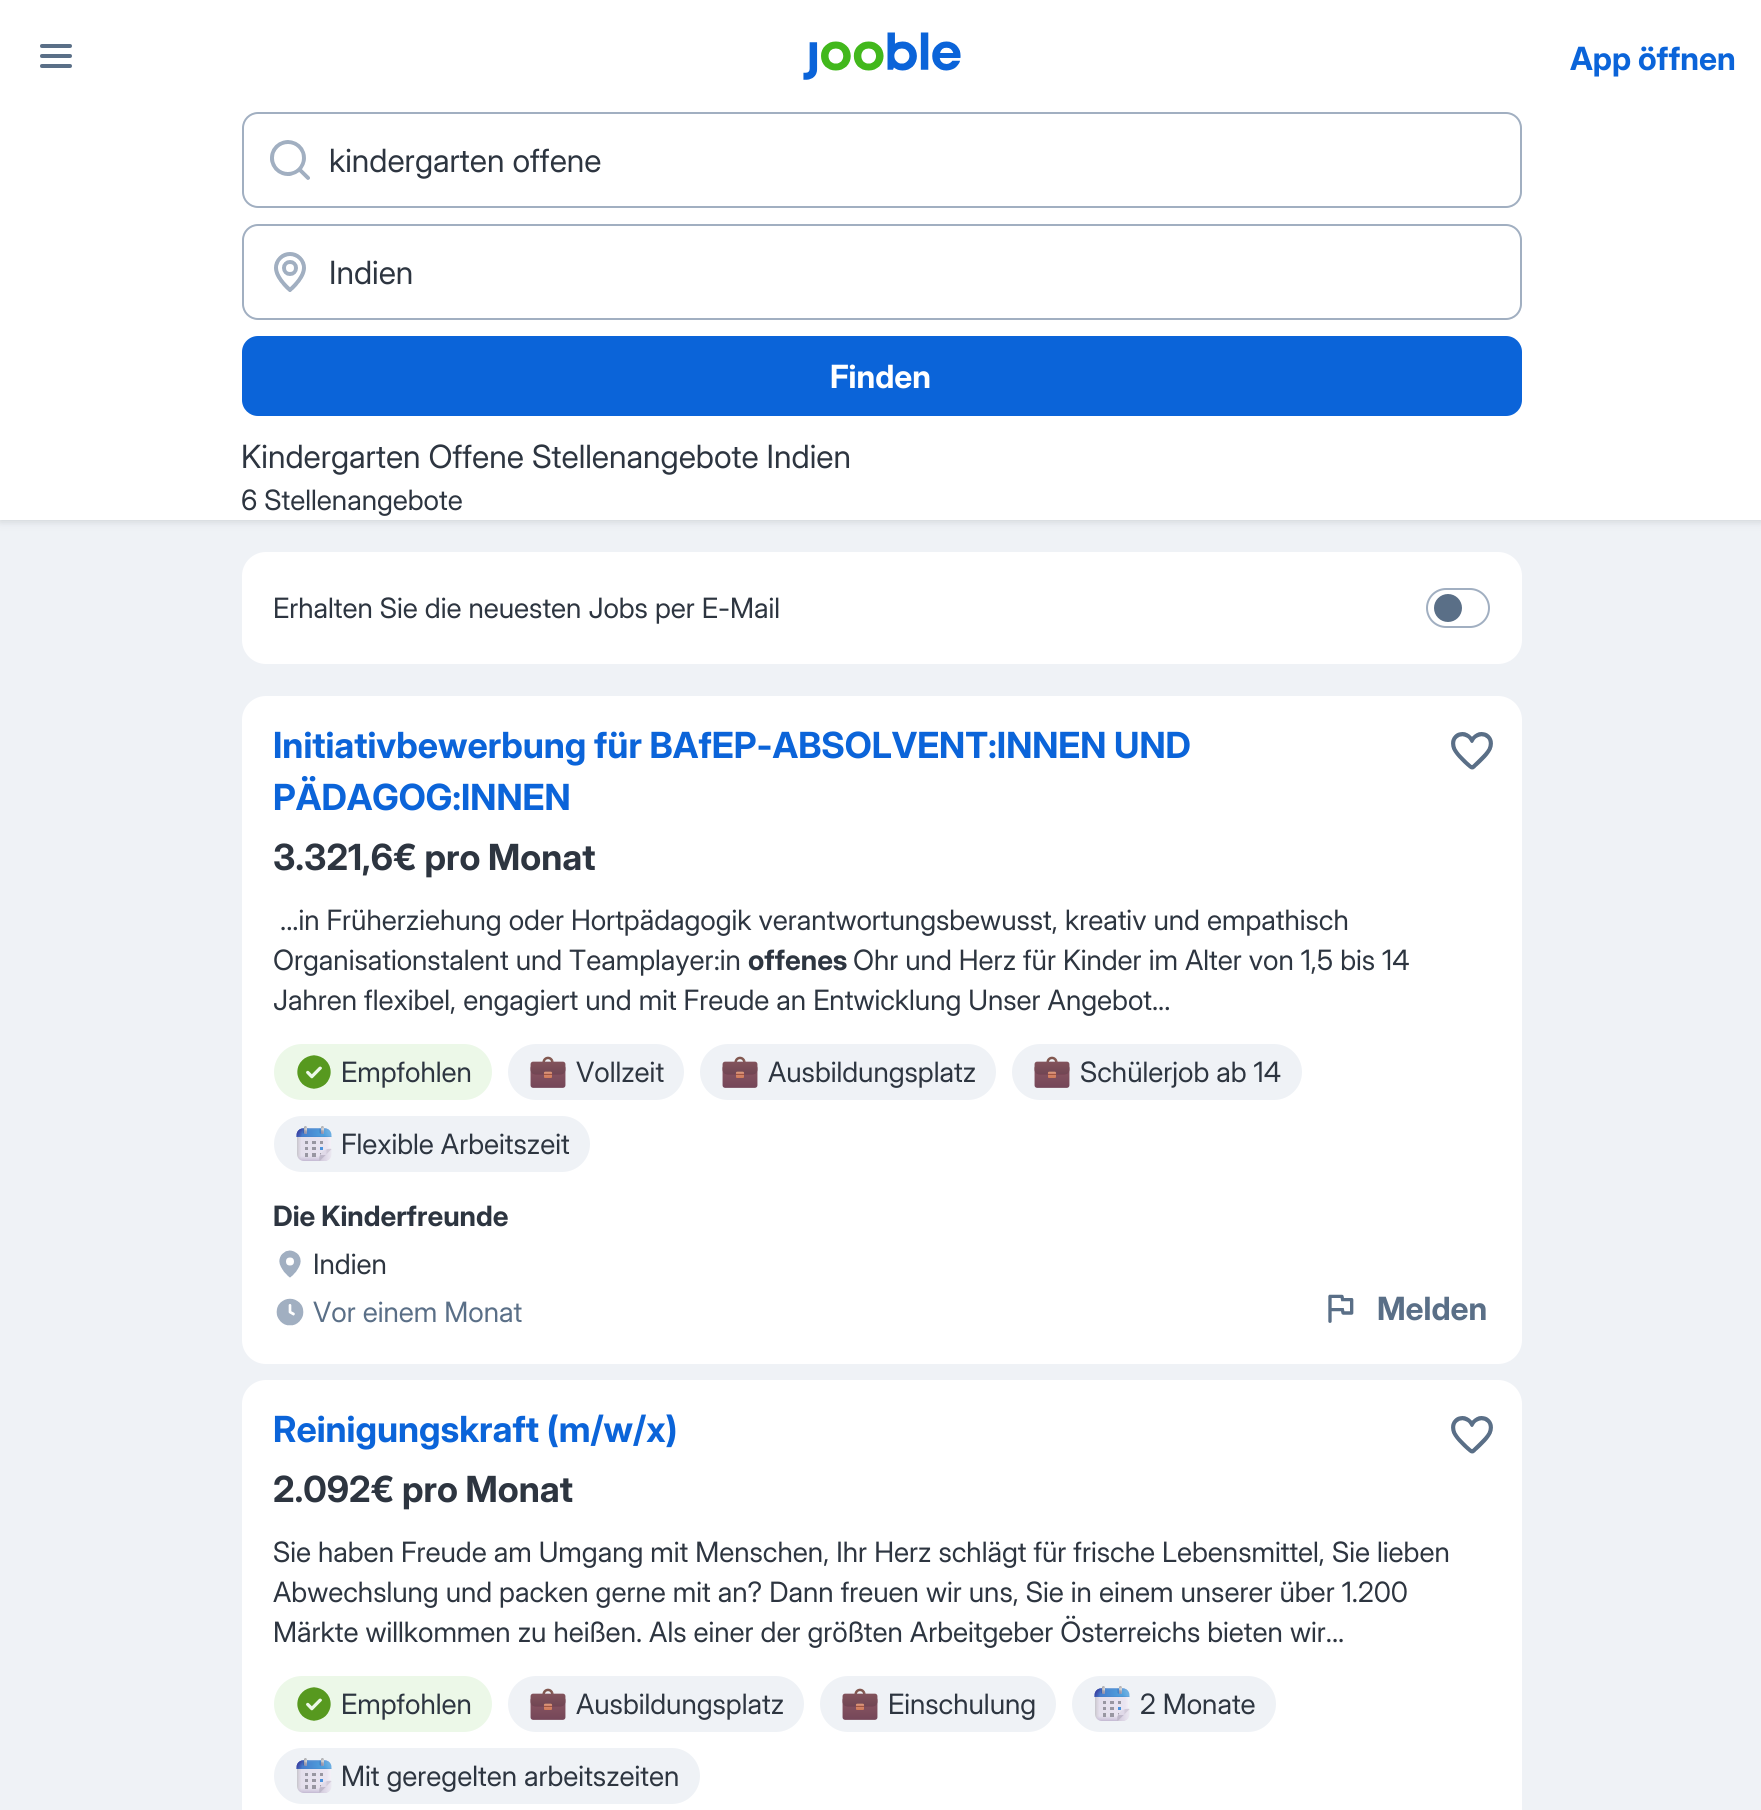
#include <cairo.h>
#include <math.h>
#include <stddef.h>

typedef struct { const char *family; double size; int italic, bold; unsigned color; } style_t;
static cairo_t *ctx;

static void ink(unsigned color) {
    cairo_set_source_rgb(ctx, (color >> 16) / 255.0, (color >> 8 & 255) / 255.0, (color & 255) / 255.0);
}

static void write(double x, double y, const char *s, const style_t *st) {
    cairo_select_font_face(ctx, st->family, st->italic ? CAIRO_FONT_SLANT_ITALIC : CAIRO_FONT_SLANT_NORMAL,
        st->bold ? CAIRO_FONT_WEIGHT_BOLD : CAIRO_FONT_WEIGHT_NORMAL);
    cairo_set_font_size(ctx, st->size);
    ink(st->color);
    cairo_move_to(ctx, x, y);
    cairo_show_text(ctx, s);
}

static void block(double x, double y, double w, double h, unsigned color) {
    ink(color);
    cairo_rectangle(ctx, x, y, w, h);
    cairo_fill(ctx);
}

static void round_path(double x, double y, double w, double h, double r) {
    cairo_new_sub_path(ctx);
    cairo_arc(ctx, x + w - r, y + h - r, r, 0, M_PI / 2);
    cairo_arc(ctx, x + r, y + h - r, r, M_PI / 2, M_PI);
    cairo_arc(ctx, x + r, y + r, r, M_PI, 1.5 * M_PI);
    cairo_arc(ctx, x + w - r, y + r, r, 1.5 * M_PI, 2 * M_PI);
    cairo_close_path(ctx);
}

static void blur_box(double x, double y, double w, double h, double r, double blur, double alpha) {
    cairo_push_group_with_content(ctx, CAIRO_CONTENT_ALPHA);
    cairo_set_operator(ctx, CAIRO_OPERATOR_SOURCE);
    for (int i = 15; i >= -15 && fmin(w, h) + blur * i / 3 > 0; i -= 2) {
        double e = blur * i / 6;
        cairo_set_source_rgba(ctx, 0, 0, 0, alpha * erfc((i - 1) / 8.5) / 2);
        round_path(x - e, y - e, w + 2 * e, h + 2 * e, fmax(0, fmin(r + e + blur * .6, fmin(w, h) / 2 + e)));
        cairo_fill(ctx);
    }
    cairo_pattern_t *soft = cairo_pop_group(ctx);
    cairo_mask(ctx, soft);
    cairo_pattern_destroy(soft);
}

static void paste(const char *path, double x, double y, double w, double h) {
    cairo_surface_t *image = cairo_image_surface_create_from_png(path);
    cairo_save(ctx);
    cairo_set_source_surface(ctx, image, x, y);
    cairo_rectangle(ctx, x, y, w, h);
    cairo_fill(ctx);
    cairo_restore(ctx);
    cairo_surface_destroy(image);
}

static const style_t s1 = {"Inter Display", 32, 0, 1, 0x0b64d9};
static const style_t s2 = {"Inter Display", 32, 0, 0, 0x2d3540};
static const style_t s3 = {"Inter Display", 32, 0, 1, 0xffffff};
static const style_t s4 = {"Inter Display", 28, 0, 0, 0x2d3540};
static const style_t s5 = {"Inter Display", 36, 0, 1, 0x0b64d9};
static const style_t s6 = {"Inter Display", 36, 0, 1, 0x2d3540};
static const style_t s7 = {"Inter Display", 28, 0, 1, 0x2d3540};
static const style_t s8 = {"Inter Display", 28, 0, 0, 0x5a6f87};
static const style_t s9 = {"Inter Display", 32, 0, 1, 0x5a6f87};

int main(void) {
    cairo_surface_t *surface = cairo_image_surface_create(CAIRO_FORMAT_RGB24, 1761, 1810);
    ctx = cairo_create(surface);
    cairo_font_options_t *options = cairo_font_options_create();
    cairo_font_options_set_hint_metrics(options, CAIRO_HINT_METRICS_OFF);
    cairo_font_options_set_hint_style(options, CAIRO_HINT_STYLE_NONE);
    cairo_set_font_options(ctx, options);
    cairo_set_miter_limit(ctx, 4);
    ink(0xeff2f6);
    cairo_paint(ctx);
    ink(0x171e26);
    blur_box(0, 0, 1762, 520, 0, 6, 0.12);
    blur_box(0, 0, 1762, 520, 0, 4, 0.08);
    block(0, 0, 1761, 520, 0xffffff);
    paste("pic1.png", 40, 44, 32, 24);
    paste("pic2.png", 803, 32, 158, 48);
    write(1570, 70, "App öffnen", &s1);
    round_path(243, 113, 1278, 94, 15);
    ink(0xa1afc1);
    cairo_stroke(ctx);
    paste("pic3.png", 270, 140, 40, 40);
    write(329, 172, "kindergarten offene", &s2);
    round_path(243, 225, 1278, 94, 15);
    ink(0xa1afc1);
    cairo_stroke(ctx);
    paste("pic4.png", 274, 252, 32, 40);
    write(329, 284, "Indien", &s2);
    ink(0x0b64d9);
    round_path(242, 336, 1280, 80, 16);
    cairo_fill(ctx);
    write(830, 388, "Finden", &s3);
    write(241, 468, "Kindergarten Offene Stellenangebote Indien", &s2);
    write(241, 510, "6 Stellenangebote", &s4);
    ink(0xffffff);
    round_path(242, 552, 1280, 112, 24);
    cairo_fill(ctx);
    write(273, 618, "Erhalten Sie die neuesten Jobs per E-Mail", &s4);
    round_path(1427, 589, 62, 38, 19);
    ink(0xa1afc1);
    cairo_stroke(ctx);
    ink(0x5a6f87);
    cairo_arc(ctx, 1448, 608, 14, 0, 2 * M_PI);
    cairo_fill(ctx);
    ink(0xffffff);
    round_path(242, 696, 1280, 668, 24);
    cairo_fill(ctx);
    write(273, 758, "Initiativbewerbung für BAfEP-ABSOLVENT:INNEN UND", &s5);
    write(273, 810, "PÄDAGOG:INNEN", &s5);
    paste("pic5.png", 1451, 732, 42, 38);
    write(273, 870, "3.321,6€ pro Monat", &s6);
    write(280, 930, "...in Früherziehung oder Hortpädagogik verantwortungsbewusst, kreativ und empathisch", &s4);
    write(273, 970, "Organisationstalent und Teamplayer:in", &s4);
    write(748, 970, "offenes", &s7);
    write(853, 970, "Ohr und Herz für Kinder im Alter von 1,5 bis 14", &s4);
    write(273, 1010, "Jahren flexibel, engagiert und mit Freude an Entwicklung Unser Angebot...", &s4);
    ink(0xecf8e8);
    round_path(274, 1044, 218, 56, 28);
    cairo_fill(ctx);
    paste("pic6.png", 297, 1055, 34, 34);
    write(341, 1082, "Empfohlen", &s4);
    ink(0xeff2f6);
    round_path(508, 1044, 176, 56, 28);
    cairo_fill(ctx);
    paste("pic7.png", 530, 1056, 36, 32);
    write(576, 1082, "Vollzeit", &s4);
    ink(0xeff2f6);
    round_path(700, 1044, 296, 56, 28);
    cairo_fill(ctx);
    paste("pic7.png", 722, 1056, 36, 32);
    write(768, 1082, "Ausbildungsplatz", &s4);
    ink(0xeff2f6);
    round_path(1012, 1044, 290, 56, 28);
    cairo_fill(ctx);
    paste("pic7.png", 1034, 1056, 36, 32);
    write(1080, 1082, "Schülerjob ab 14", &s4);
    ink(0xeff2f6);
    round_path(274, 1116, 316, 56, 28);
    cairo_fill(ctx);
    paste("pic8.png", 296, 1126, 36, 35);
    write(341, 1154, "Flexible Arbeitszeit", &s4);
    write(273, 1226, "Die Kinderfreunde", &s7);
    paste("pic9.png", 279, 1250, 22, 28);
    write(313, 1274, "Indien", &s4);
    paste("pic10.png", 276, 1298, 28, 28);
    write(313, 1322, "Vor einem Monat", &s8);
    paste("pic11.png", 1328, 1294, 26, 29);
    write(1377, 1320, "Melden", &s9);
    ink(0xffffff);
    round_path(242, 1380, 1280, 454, 24);
    cairo_fill(ctx);
    write(273, 1442, "Reinigungskraft (m/w/x)", &s5);
    paste("pic5.png", 1451, 1416, 42, 38);
    write(273, 1502, "2.092€ pro Monat", &s6);
    write(273, 1562, "Sie haben Freude am Umgang mit Menschen, Ihr Herz schlägt für frische Lebensmittel, Sie lieben", &s4);
    write(273, 1602, "Abwechslung und packen gerne mit an? Dann freuen wir uns, Sie in einem unserer über 1.200", &s4);
    write(273, 1642, "Märkte willkommen zu heißen. Als einer der größten Arbeitgeber Österreichs bieten wir...", &s4);
    ink(0xecf8e8);
    round_path(274, 1676, 218, 56, 28);
    cairo_fill(ctx);
    paste("pic12.png", 297, 1687, 34, 34);
    write(341, 1714, "Empfohlen", &s4);
    ink(0xeff2f6);
    round_path(508, 1676, 296, 56, 28);
    cairo_fill(ctx);
    paste("pic7.png", 530, 1688, 36, 32);
    write(576, 1714, "Ausbildungsplatz", &s4);
    ink(0xeff2f6);
    round_path(820, 1676, 236, 56, 28);
    cairo_fill(ctx);
    paste("pic7.png", 842, 1688, 36, 32);
    write(888, 1714, "Einschulung", &s4);
    ink(0xeff2f6);
    round_path(1072, 1676, 204, 56, 28);
    cairo_fill(ctx);
    paste("pic8.png", 1094, 1686, 36, 35);
    write(1140, 1714, "2 Monate", &s4);
    ink(0xeff2f6);
    round_path(274, 1748, 426, 56, 28);
    cairo_fill(ctx);
    paste("pic8.png", 296, 1758, 36, 35);
    write(341, 1786, "Mit geregelten arbeitszeiten", &s4);
    cairo_surface_write_to_png(surface, "screenshot.png");
    cairo_font_options_destroy(options);
    cairo_destroy(ctx);
    cairo_surface_destroy(surface);
    return 0;
}
